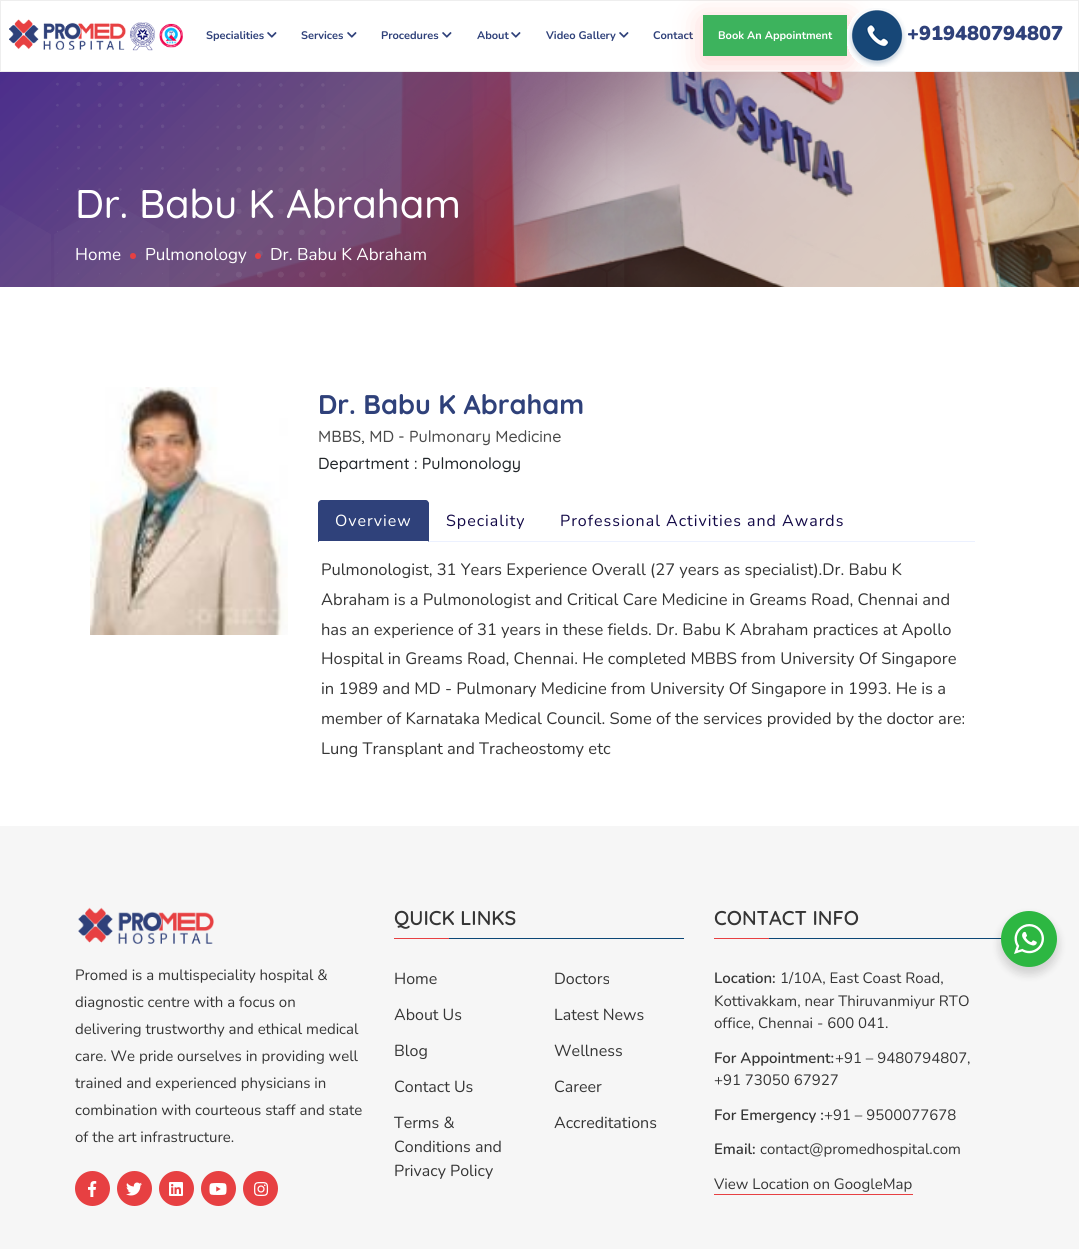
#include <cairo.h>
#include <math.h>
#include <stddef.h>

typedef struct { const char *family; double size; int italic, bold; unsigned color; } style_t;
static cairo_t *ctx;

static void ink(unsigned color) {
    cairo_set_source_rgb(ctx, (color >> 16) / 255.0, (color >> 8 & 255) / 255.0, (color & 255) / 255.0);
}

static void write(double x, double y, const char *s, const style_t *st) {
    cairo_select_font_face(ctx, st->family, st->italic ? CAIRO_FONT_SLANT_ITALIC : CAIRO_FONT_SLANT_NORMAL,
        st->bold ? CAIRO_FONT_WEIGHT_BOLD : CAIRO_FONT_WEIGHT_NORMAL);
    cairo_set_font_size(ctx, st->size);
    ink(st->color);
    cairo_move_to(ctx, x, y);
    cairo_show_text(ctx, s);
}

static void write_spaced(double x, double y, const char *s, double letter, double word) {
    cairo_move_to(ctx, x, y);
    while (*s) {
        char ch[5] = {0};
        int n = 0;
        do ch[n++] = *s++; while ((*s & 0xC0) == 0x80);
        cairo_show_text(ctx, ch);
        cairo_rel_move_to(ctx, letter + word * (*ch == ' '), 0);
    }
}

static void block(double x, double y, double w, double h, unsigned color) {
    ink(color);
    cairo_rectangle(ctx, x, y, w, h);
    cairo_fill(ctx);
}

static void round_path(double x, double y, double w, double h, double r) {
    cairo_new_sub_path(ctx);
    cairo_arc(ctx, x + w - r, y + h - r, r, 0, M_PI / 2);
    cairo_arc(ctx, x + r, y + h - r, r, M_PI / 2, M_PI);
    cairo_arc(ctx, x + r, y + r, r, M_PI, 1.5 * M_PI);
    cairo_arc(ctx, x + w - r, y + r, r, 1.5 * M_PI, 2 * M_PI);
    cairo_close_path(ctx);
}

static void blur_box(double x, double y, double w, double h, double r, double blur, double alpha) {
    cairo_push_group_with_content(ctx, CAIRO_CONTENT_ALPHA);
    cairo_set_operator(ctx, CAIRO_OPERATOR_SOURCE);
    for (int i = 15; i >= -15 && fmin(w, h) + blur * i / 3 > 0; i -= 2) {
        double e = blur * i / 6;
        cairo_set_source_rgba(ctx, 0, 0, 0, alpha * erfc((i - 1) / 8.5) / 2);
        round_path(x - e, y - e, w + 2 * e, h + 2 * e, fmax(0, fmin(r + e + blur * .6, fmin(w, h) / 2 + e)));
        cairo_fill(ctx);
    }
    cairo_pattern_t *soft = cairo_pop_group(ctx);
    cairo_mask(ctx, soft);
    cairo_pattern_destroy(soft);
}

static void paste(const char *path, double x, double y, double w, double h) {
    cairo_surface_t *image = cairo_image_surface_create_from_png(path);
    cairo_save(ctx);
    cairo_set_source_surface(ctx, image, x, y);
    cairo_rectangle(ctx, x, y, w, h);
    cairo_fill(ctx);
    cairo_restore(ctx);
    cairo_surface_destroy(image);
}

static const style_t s1 = {"Nunito", 11, 0, 1, 0x2f417a};
static const style_t s2 = {"Nunito", 11, 0, 1, 0xffffff};
static const style_t s3 = {"Nunito Black", 20, 0, 0, 0x2f417a};
static const style_t s4 = {"Quicksand Medium", 40, 0, 0, 0xffffff};
static const style_t s5 = {"Nunito", 17, 0, 0, 0xffffff};
static const style_t s6 = {"Quicksand", 27, 0, 1, 0x2f417a};
static const style_t s7 = {"Quicksand Medium", 16, 0, 0, 0x4a4a4a};
static const style_t s8 = {"Quicksand Medium", 16, 0, 0, 0x212529};
static const style_t s9 = {"Nunito", 16.5, 0, 0, 0x353535};
static const style_t s10 = {"Nunito", 15, 0, 0, 0x353535};
static const style_t s11 = {"Quicksand SemiBold", 20, 0, 0, 0x353535};
static const style_t s12 = {"Nunito", 16, 0, 0, 0x353535};
static const style_t s13 = {"Nunito SemiBold", 15, 0, 0, 0x353535};

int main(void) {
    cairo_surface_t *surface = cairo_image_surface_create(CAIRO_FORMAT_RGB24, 1079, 1249);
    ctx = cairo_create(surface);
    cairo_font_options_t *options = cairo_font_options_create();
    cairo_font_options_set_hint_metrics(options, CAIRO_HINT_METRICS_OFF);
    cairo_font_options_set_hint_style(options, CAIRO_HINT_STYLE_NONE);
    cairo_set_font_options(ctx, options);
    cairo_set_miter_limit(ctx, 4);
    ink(0xffffff);
    cairo_paint(ctx);
    cairo_rectangle(ctx, 0.5, 0.5, 1078, 71);
    ink(0xeeeeee);
    cairo_set_line_width(ctx, 1);
    cairo_stroke(ctx);
    paste("pic1.png", 9, 19, 174, 32);
    write(206, 39, "Specialities", &s1);
    paste("pic2.png", 267, 32, 10, 6);
    write(301, 39, "Services", &s1);
    paste("pic2.png", 347, 32, 10, 6);
    write(381, 39, "Procedures", &s1);
    paste("pic2.png", 442, 32, 10, 6);
    write(477, 39, "About", &s1);
    paste("pic2.png", 511, 32, 10, 6);
    write(546, 39, "Video Gallery", &s1);
    paste("pic2.png", 619, 32, 10, 6);
    write(653, 39, "Contact", &s1);
    paste("pic4.png", 0, 72, 1079, 215);
    paste("pic5.png", 0, 72, 1079, 215);
    ink(0xfe2309);
    blur_box(702, 19, 147, 44, 0, 14, 0.2);
    block(703, 15, 144, 41, 0x3db35d);
    write(718, 39, "Book An Appointment", &s2);
    paste("pic3.png", 847, 8, 60, 59);
    write(907, 40, "+919480794807", &s3);
    write(75, 218, "Dr. Babu K Abraham", &s4);
    write(75, 260, "Home", &s5);
    ink(0xe74042);
    cairo_new_path(ctx);
    cairo_arc(ctx, 133, 256, 3, 0, 2 * M_PI);
    cairo_fill(ctx);
    write(145, 260, "Pulmonology", &s5);
    ink(0xe74042);
    cairo_new_path(ctx);
    cairo_arc(ctx, 258, 256, 3, 0, 2 * M_PI);
    cairo_fill(ctx);
    write(270, 260, "Dr. Babu K Abraham", &s5);
    paste("pic6.png", 90, 387, 198, 248);
    write(318, 414, "Dr. Babu K Abraham", &s6);
    write(318, 442, "MBBS, MD - Pulmonary Medicine", &s7);
    write(318, 469, "Department : Pulmonology", &s8);
    block(429, 541, 546, 1, 0xecf1ff);
    ink(0x2f417a);
    cairo_new_path(ctx);
    cairo_move_to(ctx, 322, 500);
    cairo_line_to(ctx, 425, 500);
    cairo_curve_to(ctx, 427, 500, 429, 502, 429, 504);
    cairo_line_to(ctx, 429, 542);
    cairo_line_to(ctx, 318, 542);
    cairo_line_to(ctx, 318, 504);
    cairo_curve_to(ctx, 318, 502, 320, 500, 322, 500);
    cairo_close_path(ctx);
    cairo_fill(ctx);
    cairo_new_path(ctx);
    cairo_move_to(ctx, 322, 500);
    cairo_line_to(ctx, 319, 501);
    cairo_line_to(ctx, 320, 502);
    cairo_line_to(ctx, 322, 501);
    cairo_line_to(ctx, 425, 501);
    cairo_line_to(ctx, 427, 502);
    cairo_line_to(ctx, 428, 501);
    cairo_line_to(ctx, 425, 500);
    cairo_close_path(ctx);
    cairo_fill(ctx);
    cairo_new_path(ctx);
    cairo_move_to(ctx, 429, 542);
    cairo_line_to(ctx, 429, 504);
    cairo_curve_to(ctx, 429, 503, 428, 502, 428, 501);
    cairo_line_to(ctx, 427, 502);
    cairo_curve_to(ctx, 429, 504, 428, 536, 428, 541);
    cairo_close_path(ctx);
    cairo_fill(ctx);
    ink(0xffffff);
    cairo_new_path(ctx);
    cairo_move_to(ctx, 429, 542);
    cairo_line_to(ctx, 428, 541);
    cairo_line_to(ctx, 319, 541);
    cairo_line_to(ctx, 318, 542);
    cairo_close_path(ctx);
    cairo_fill(ctx);
    ink(0x2f417a);
    cairo_new_path(ctx);
    cairo_move_to(ctx, 318, 542);
    cairo_line_to(ctx, 319, 541);
    cairo_curve_to(ctx, 319, 536, 318, 504, 320, 502);
    cairo_line_to(ctx, 319, 501);
    cairo_line_to(ctx, 318, 504);
    cairo_close_path(ctx);
    cairo_fill(ctx);
    cairo_select_font_face(ctx, "Nunito", CAIRO_FONT_SLANT_NORMAL, CAIRO_FONT_WEIGHT_NORMAL);
    ink(0xffffff);
    write_spaced(335, 526, "Overview", 1, 0);
    ink(0x130947);
    write_spaced(446, 526, "Speciality", 1, 0);
    write_spaced(560, 526, "Professional Activities and Awards", 1, 0);
    write(321, 575, "Pulmonologist, 31 Years Experience Overall (27 years as specialist).Dr. Babu K", &s9);
    write(321, 605, "Abraham is a Pulmonologist and Critical Care Medicine in Greams Road, Chennai and", &s9);
    write(321, 635, "has an experience of 31 years in these fields. Dr. Babu K Abraham practices at Apollo", &s9);
    write(321, 664, "Hospital in Greams Road, Chennai. He completed MBBS from University Of Singapore", &s9);
    write(321, 694, "in 1989 and MD - Pulmonary Medicine from University Of Singapore in 1993. He is a", &s9);
    write(321, 724, "member of Karnataka Medical Council. Some of the services provided by the doctor are:", &s9);
    write(321, 754, "Lung Transplant and Tracheostomy etc", &s9);
    block(0, 826, 1079, 423, 0xf6f6f6);
    paste("pic7.png", 78, 907, 136, 37);
    write(75, 980, "Promed is a multispeciality hospital &", &s10);
    write(75, 1007, "diagnostic centre with a focus on", &s10);
    write(75, 1034, "delivering trustworthy and ethical medical", &s10);
    write(75, 1061, "care. We pride ourselves in providing well", &s10);
    write(75, 1088, "trained and experienced physicians in", &s10);
    write(75, 1115, "combination with courteous staff and state", &s10);
    write(75, 1142, "of the art infrastructure.", &s10);
    ink(0xe74042);
    cairo_new_path(ctx);
    cairo_arc(ctx, 92.5, 1188.5, 17.5, 0, 2 * M_PI);
    cairo_fill(ctx);
    paste("pic8.png", 88, 1181, 9, 16);
    cairo_arc(ctx, 134.5, 1188.5, 17.5, 0, 2 * M_PI);
    cairo_fill(ctx);
    paste("pic9.png", 126, 1182, 16, 14);
    cairo_arc(ctx, 176.5, 1188.5, 17.5, 0, 2 * M_PI);
    cairo_fill(ctx);
    paste("pic10.png", 169, 1182, 14, 14);
    cairo_arc(ctx, 218.5, 1188.5, 17.5, 0, 2 * M_PI);
    cairo_fill(ctx);
    paste("pic11.png", 209, 1183, 18, 12);
    cairo_arc(ctx, 260.5, 1188.5, 17.5, 0, 2 * M_PI);
    cairo_fill(ctx);
    paste("pic12.png", 254, 1182, 15, 14);
    block(449, 938, 235, 1, 0x0c4776);
    write(394, 925, "QUICK LINKS", &s11);
    block(394, 938, 55, 1, 0xe74042);
    write(394, 984, "Home", &s12);
    write(554, 984, "Doctors", &s12);
    write(394, 1020, "About Us", &s12);
    write(554, 1020, "Latest News", &s12);
    write(394, 1056, "Blog", &s12);
    write(554, 1056, "Wellness", &s12);
    write(394, 1092, "Contact Us", &s12);
    write(554, 1092, "Career", &s12);
    write(394, 1128, "Terms &", &s12);
    write(394, 1152, "Conditions and", &s12);
    write(394, 1176, "Privacy Policy", &s12);
    write(554, 1128, "Accreditations", &s12);
    block(769, 938, 235, 1, 0x0c4776);
    write(714, 925, "CONTACT INFO", &s11);
    block(714, 938, 55, 1, 0xe74042);
    write(714, 983, "Location:", &s13);
    write(780, 983, "1/10A, East Coast Road,", &s10);
    write(714, 1006, "Kottivakkam, near Thiruvanmiyur RTO", &s10);
    write(714, 1028, "office, Chennai - 600 041.", &s10);
    write(714, 1063, "For Appointment:", &s13);
    write(835, 1063, "+91 – 9480794807", &s10);
    write(967, 1063, ",", &s10);
    write(714, 1085, "+91 73050 67927", &s10);
    write(714, 1120, "For Emergency :", &s13);
    write(824, 1120, "+91 – 9500077678", &s10);
    write(714, 1154, "Email:", &s13);
    write(760, 1154, "contact@promedhospital.com", &s10);
    write(714, 1189, "View Location on GoogleMap", &s10);
    block(714, 1194, 199, 1, 0xe74042);
    ink(0x000000);
    blur_box(999, 915, 60, 60, 30, 4, 0.14);
    ink(0x2db742);
    cairo_arc(ctx, 1029, 939, 28, 0, 2 * M_PI);
    cairo_fill(ctx);
    paste("pic13.png", 1014, 924, 30, 30);
    cairo_surface_write_to_png(surface, "screenshot.png");
    cairo_font_options_destroy(options);
    cairo_destroy(ctx);
    cairo_surface_destroy(surface);
    return 0;
}
